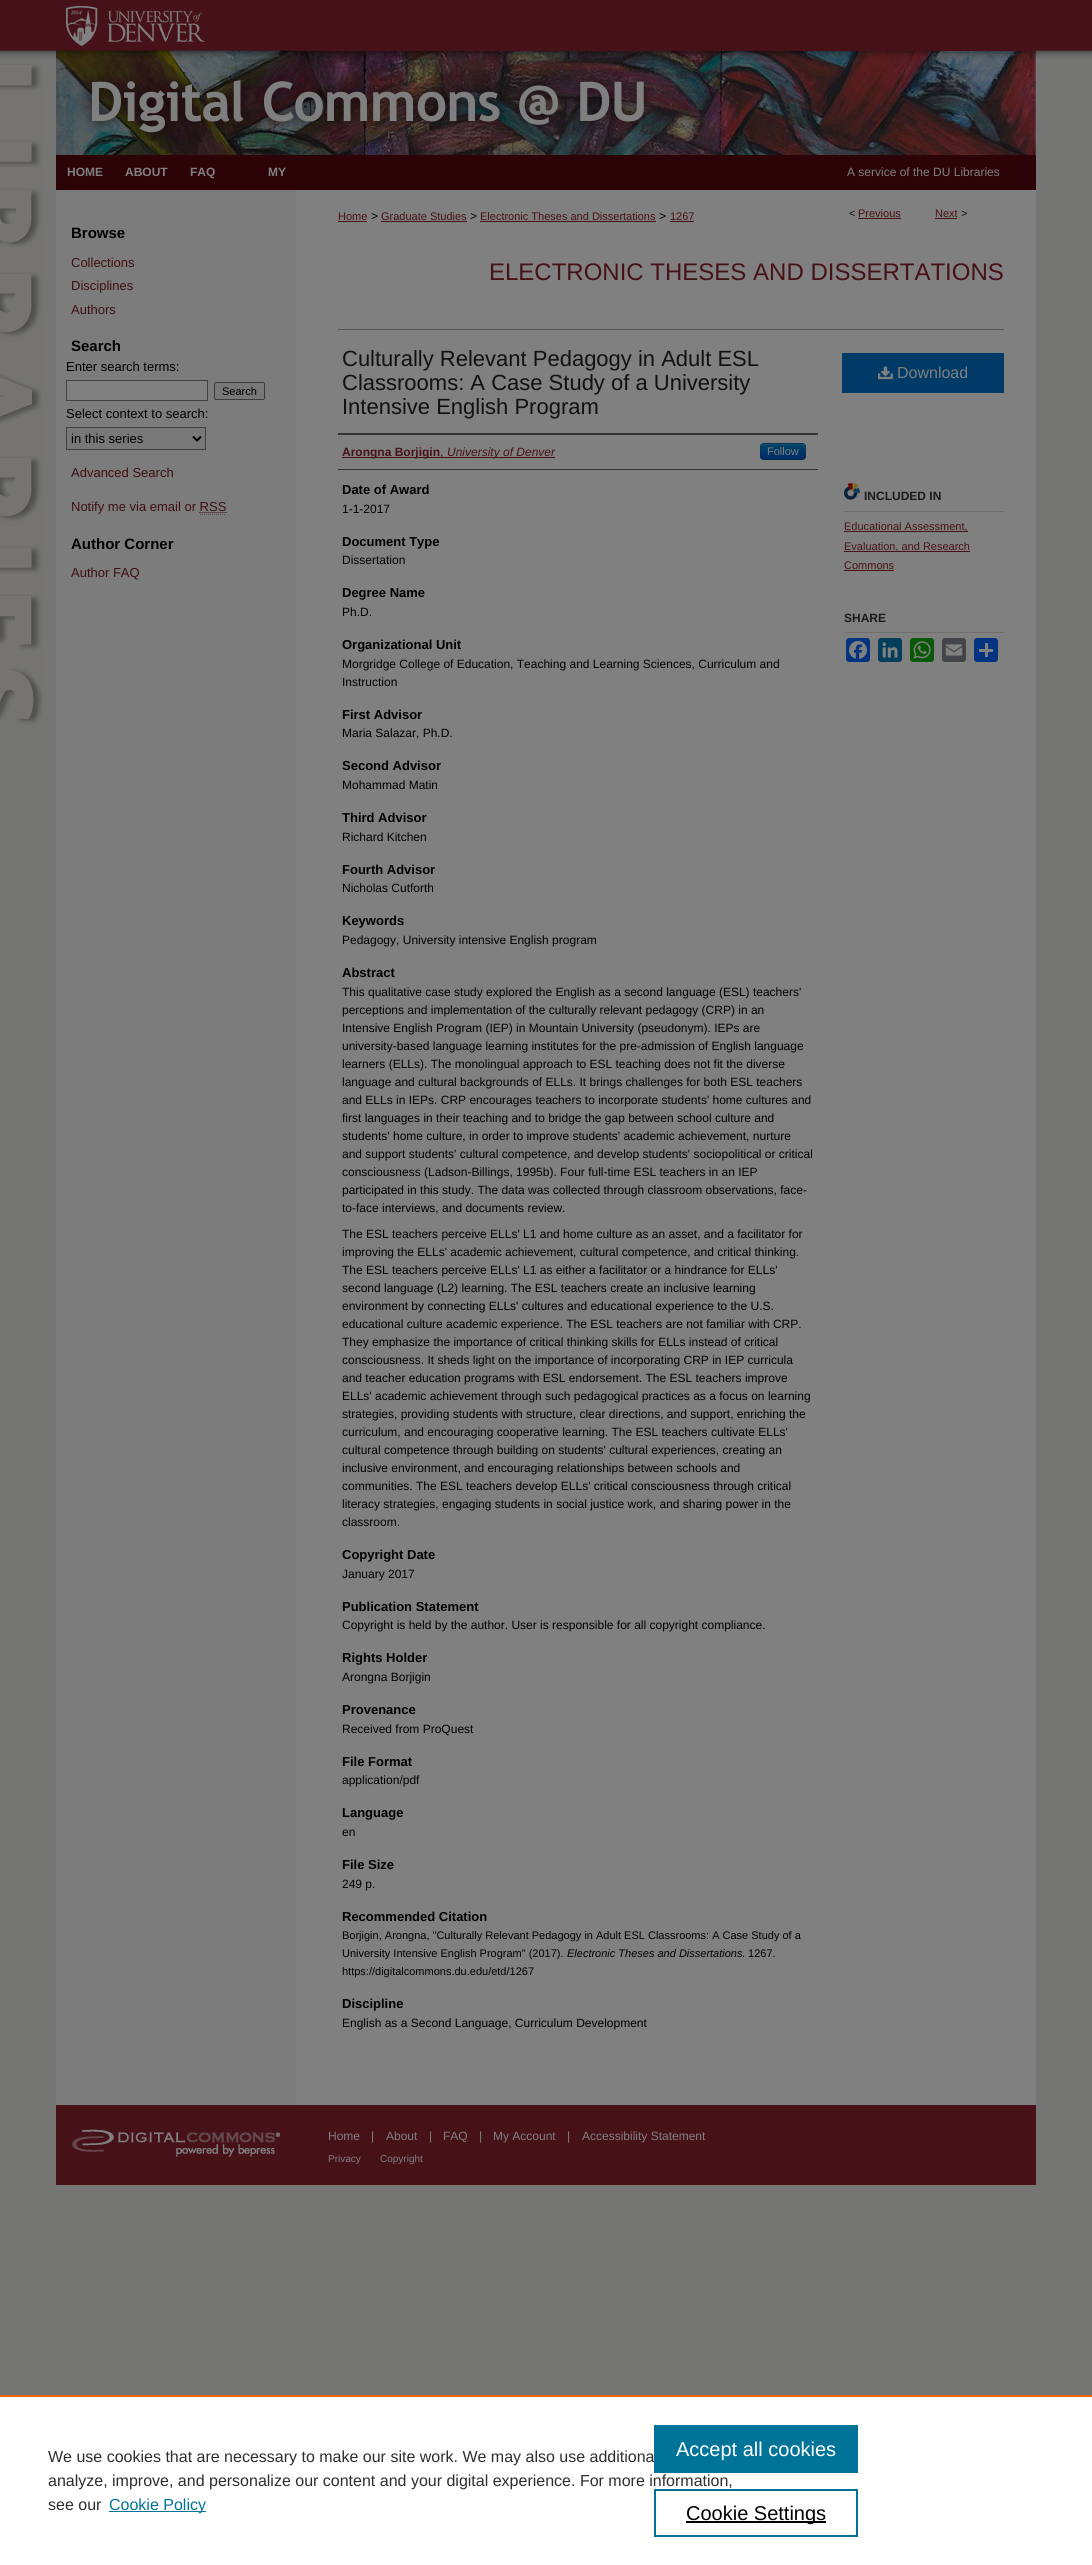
#include <cairo.h>
#include <math.h>
#include <stddef.h>

typedef struct { const char *family; double size; int italic, bold; unsigned color; } style_t;
static cairo_t *ctx;

static void ink(unsigned color) {
    cairo_set_source_rgb(ctx, (color >> 16) / 255.0, (color >> 8 & 255) / 255.0, (color & 255) / 255.0);
}

static void write(double x, double y, const char *s, const style_t *st) {
    cairo_select_font_face(ctx, st->family, st->italic ? CAIRO_FONT_SLANT_ITALIC : CAIRO_FONT_SLANT_NORMAL,
        st->bold ? CAIRO_FONT_WEIGHT_BOLD : CAIRO_FONT_WEIGHT_NORMAL);
    cairo_set_font_size(ctx, st->size);
    ink(st->color);
    cairo_move_to(ctx, x, y);
    cairo_show_text(ctx, s);
}

static void block(double x, double y, double w, double h, unsigned color) {
    ink(color);
    cairo_rectangle(ctx, x, y, w, h);
    cairo_fill(ctx);
}

static void round_path(double x, double y, double w, double h, double r) {
    cairo_new_sub_path(ctx);
    cairo_arc(ctx, x + w - r, y + h - r, r, 0, M_PI / 2);
    cairo_arc(ctx, x + r, y + h - r, r, M_PI / 2, M_PI);
    cairo_arc(ctx, x + r, y + r, r, M_PI, 1.5 * M_PI);
    cairo_arc(ctx, x + w - r, y + r, r, 1.5 * M_PI, 2 * M_PI);
    cairo_close_path(ctx);
}

static void paste(const char *path, double x, double y, double w, double h) {
    cairo_surface_t *image = cairo_image_surface_create_from_png(path);
    cairo_save(ctx);
    cairo_set_source_surface(ctx, image, x, y);
    cairo_rectangle(ctx, x, y, w, h);
    cairo_fill(ctx);
    cairo_restore(ctx);
    cairo_surface_destroy(image);
}

static const style_t s1 = {"Liberation Sans", 12, 0, 1, 0x808080};
static const style_t s2 = {"Liberation Sans", 12, 0, 0, 0x808080};
static const style_t s3 = {"Liberation Sans", 15, 0, 1, 0x000000};
static const style_t s4 = {"Liberation Sans", 13, 0, 0, 0x3e0f15};
static const style_t s5 = {"Liberation Sans", 13, 0, 0, 0x000000};
static const style_t s6 = {"Liberation Sans", 11, 0, 0, 0x000000};
static const style_t s7 = {"Liberation Sans", 11, 0, 0, 0x471118};
static const style_t s8 = {"Liberation Sans", 12, 0, 0, 0x000000};
static const style_t s9 = {"Liberation Sans", 11, 0, 0, 0x111111};
static const style_t s10 = {"Liberation Sans", 24, 0, 0, 0x471118};
static const style_t s11 = {"Liberation Sans", 22, 0, 0, 0x111111};
static const style_t s12 = {"Liberation Sans", 12, 0, 1, 0x471118};
static const style_t s13 = {"Liberation Sans", 12, 0, 0, 0x471118};
static const style_t s14 = {"Liberation Sans", 12, 1, 0, 0x471118};
static const style_t s15 = {"Liberation Sans", 11, 0, 0, 0x808080};
static const style_t s16 = {"Liberation Sans", 13, 0, 1, 0x000000};
static const style_t s17 = {"Liberation Sans", 11, 1, 0, 0x000000};
static const style_t s18 = {"Liberation Sans", 16, 0, 0, 0x808080};
static const style_t s19 = {"Liberation Sans", 12, 0, 1, 0x1a1a1a};
static const style_t s20 = {"Liberation Sans", 10, 0, 0, 0x808080};
static const style_t s21 = {"Liberation Sans", 16, 0, 0, 0x2e2e2e};
static const style_t s22 = {"Liberation Sans", 16, 0, 0, 0x007398};
static const style_t s23 = {"Liberation Sans", 20, 0, 0, 0xffffff};
static const style_t s24 = {"Liberation Sans", 20, 0, 0, 0x000000};

int main(void) {
    cairo_surface_t *surface = cairo_image_surface_create(CAIRO_FORMAT_RGB24, 1092, 2565);
    ctx = cairo_create(surface);
    cairo_font_options_t *options = cairo_font_options_create();
    cairo_font_options_set_hint_metrics(options, CAIRO_HINT_METRICS_OFF);
    cairo_font_options_set_hint_style(options, CAIRO_HINT_STYLE_NONE);
    cairo_set_font_options(ctx, options);
    cairo_set_miter_limit(ctx, 4);
    cairo_pattern_t *gradient;
    ink(0x757573);
    cairo_paint(ctx);
    paste("pic1.png", 0, 59, 43, 666);
    paste("pic2.png", 0, 0, 1092, 59);
    block(56, 50, 980, 1, 0x471118);
    paste("pic3.png", 56, 6, 240, 45);
    paste("pic4.png", 56, 51, 980, 104);
    block(56, 155, 980, 35, 0x2c0307);
    write(67, 176, "HOME", &s1);
    write(125, 176, "ABOUT", &s1);
    write(190, 176, "FAQ", &s1);
    write(268, 176, "MY", &s1);
    write(847, 176, "A service of the DU Libraries", &s2);
    block(56, 190, 240, 1915, 0x7c7c7c);
    block(296, 190, 740, 1915, 0x808080);
    write(71, 238, "Browse", &s3);
    write(71, 267, "Collections", &s4);
    write(71, 290, "Disciplines", &s4);
    write(71, 314, "Authors", &s4);
    write(71, 351, "Search", &s3);
    write(66, 371, "Enter search terms:", &s5);
    ink(0x808080);
    cairo_rectangle(ctx, 66.5, 380.5, 141, 20);
    cairo_fill_preserve(ctx);
    ink(0x404040);
    cairo_set_line_width(ctx, 1);
    cairo_stroke(ctx);
    ink(0x787878);
    round_path(214.5, 382.5, 50, 17, 1.5);
    cairo_fill_preserve(ctx);
    ink(0x3b3b3b);
    cairo_stroke(ctx);
    write(222, 395, "Search", &s6);
    write(66, 418, "Select context to search:", &s5);
    ink(0x787878);
    cairo_rectangle(ctx, 66.5, 427.5, 139, 22);
    cairo_fill_preserve(ctx);
    ink(0x404040);
    cairo_stroke(ctx);
    cairo_new_path(ctx);
    cairo_move_to(ctx, 193, 436.5);
    cairo_line_to(ctx, 197, 440.5);
    cairo_line_to(ctx, 201, 436.5);
    ink(0x000000);
    cairo_set_line_width(ctx, 2);
    cairo_stroke(ctx);
    write(71, 443, "in this series", &s5);
    write(71, 477, "Advanced Search", &s4);
    write(71, 511, "Notify me via email or RSS", &s4);
    cairo_new_path(ctx);
    cairo_move_to(ctx, 199.5, 512.5);
    cairo_line_to(ctx, 226.5, 512.5);
    cairo_set_line_width(ctx, 1);
    cairo_set_dash(ctx, (double[]){1, 1}, 2, 0);
    cairo_stroke(ctx);
    cairo_new_path(ctx);
    cairo_move_to(ctx, 200, 514.5);
    cairo_line_to(ctx, 226, 514.5);
    ink(0x4d4d4d);
    cairo_stroke(ctx);
    write(71, 549, "Author Corner", &s3);
    write(71, 577, "Author FAQ", &s4);
    write(338, 220, "Home", &s7);
    block(338, 221, 29, 1, 0x471118);
    write(371, 220, ">", &s8);
    write(381, 220, "Graduate Studies", &s7);
    block(381, 221, 86, 1, 0x471118);
    write(470, 220, ">", &s8);
    write(480, 220, "Electronic Theses and Dissertations", &s7);
    block(480, 221, 176, 1, 0x471118);
    write(659, 220, ">", &s8);
    write(670, 220, "1267", &s7);
    block(670, 221, 24, 1, 0x471118);
    write(849, 217, "<", &s9);
    write(858, 217, "Previous", &s7);
    block(858, 218, 43, 1, 0x471118);
    write(935, 217, "Next", &s7);
    block(935, 218, 22, 1, 0x471118);
    write(961, 217, ">", &s9);
    write(489, 280, "ELECTRONIC THESES AND DISSERTATIONS", &s10);
    block(338, 329, 666, 1, 0x555555);
    write(342, 366, "Culturally Relevant Pedagogy in Adult ESL", &s11);
    write(342, 390, "Classrooms: A Case Study of a University", &s11);
    write(342, 414, "Intensive English Program", &s11);
    block(338, 433, 480, 2, 0x333333);
    block(338, 469, 480, 1, 0x333333);
    block(342, 457, 213, 1, 0x471118);
    write(342, 456, "Arongna Borjigin", &s12);
    write(440, 456, ",", &s13);
    write(447, 456, "University of Denver", &s14);
    ink(0x003a66);
    round_path(760, 443, 46, 17, 4);
    cairo_fill(ctx);
    cairo_save(ctx);
    round_path(760, 443, 46, 17, 4);
    cairo_clip(ctx);
    gradient = cairo_pattern_create_linear(783, 444, 783, 459);
    cairo_pattern_add_color_stop_rgba(gradient, 0, 0, 0.267, 0.4, 1);
    cairo_pattern_add_color_stop_rgba(gradient, 1, 0, 0.169, 0.4, 1);
    cairo_set_source(ctx, gradient);
    cairo_pattern_destroy(gradient);
    cairo_rectangle(ctx, 760, 444, 46, 15);
    cairo_fill(ctx);
    cairo_restore(ctx);
    cairo_set_source_rgba(ctx, 0.502, 0.502, 0.502, 0.2);
    cairo_new_path(ctx);
    cairo_move_to(ctx, 764, 445);
    cairo_line_to(ctx, 789, 445);
    cairo_curve_to(ctx, 803, 445, 805, 441, 805, 456);
    cairo_curve_to(ctx, 805, 445, 808, 444, 796, 444);
    cairo_line_to(ctx, 770, 444);
    cairo_curve_to(ctx, 763, 444, 761, 443, 761, 450);
    cairo_line_to(ctx, 761, 457);
    cairo_curve_to(ctx, 761, 454, 760, 445, 764, 445);
    cairo_close_path(ctx);
    cairo_fill(ctx);
    cairo_new_path(ctx);
    cairo_move_to(ctx, 804.5, 458.5);
    cairo_curve_to(ctx, 804, 459, 803, 459.5, 802, 459.5);
    cairo_line_to(ctx, 764, 459.5);
    cairo_curve_to(ctx, 763, 459.5, 762, 459, 761.5, 458.5);
    cairo_set_source_rgba(ctx, 0, 0, 0, 0.25);
    cairo_set_dash(ctx, NULL, 0, 0);
    cairo_stroke(ctx);
    cairo_new_path(ctx);
    cairo_move_to(ctx, 761.5, 458.5);
    cairo_curve_to(ctx, 760, 456.5, 760.5, 453.5, 760.5, 451.5);
    cairo_curve_to(ctx, 760.5, 442.5, 761, 443.5, 770.5, 443.5);
    cairo_line_to(ctx, 795.5, 443.5);
    cairo_curve_to(ctx, 805, 443.5, 805.5, 442.5, 805.5, 451.5);
    cairo_curve_to(ctx, 805.5, 453.5, 806, 456.5, 804.5, 458.5);
    cairo_set_source_rgba(ctx, 0, 0, 0, 0.1);
    cairo_stroke(ctx);
    write(767, 455, "Follow", &s15);
    write(342, 494, "Date of Award", &s16);
    write(342, 513, "1-1-2017", &s8);
    write(342, 546, "Document Type", &s16);
    write(342, 564, "Dissertation", &s8);
    write(342, 597, "Degree Name", &s16);
    write(342, 616, "Ph.D.", &s8);
    write(342, 649, "Organizational Unit", &s16);
    write(342, 668, "Morgridge College of Education, Teaching and Learning Sciences, Curriculum and", &s8);
    write(342, 686, "Instruction", &s8);
    write(342, 719, "First Advisor", &s16);
    write(342, 737, "Maria Salazar, Ph.D.", &s8);
    write(342, 770, "Second Advisor", &s16);
    write(342, 789, "Mohammad Matin", &s8);
    write(342, 822, "Third Advisor", &s16);
    write(342, 841, "Richard Kitchen", &s8);
    write(342, 874, "Fourth Advisor", &s16);
    write(342, 892, "Nicholas Cutforth", &s8);
    write(342, 925, "Keywords", &s16);
    write(342, 944, "Pedagogy, University intensive English program", &s8);
    write(342, 977, "Abstract", &s16);
    write(342, 996, "This qualitative case study explored the English as a second language (ESL) teachers'", &s8);
    write(342, 1014, "perceptions and implementation of the culturally relevant pedagogy (CRP) in an", &s8);
    write(342, 1032, "Intensive English Program (IEP) in Mountain University (pseudonym). IEPs are", &s8);
    write(342, 1050, "university-based language learning institutes for the pre-admission of English language", &s8);
    write(342, 1068, "learners (ELLs). The monolingual approach to ESL teaching does not fit the diverse", &s8);
    write(342, 1086, "language and cultural backgrounds of ELLs. It brings challenges for both ESL teachers", &s8);
    write(342, 1104, "and ELLs in IEPs. CRP encourages teachers to incorporate students' home cultures and", &s8);
    write(342, 1122, "first languages in their teaching and to bridge the gap between school culture and", &s8);
    write(342, 1140, "students' home culture, in order to improve students' academic achievement, nurture", &s8);
    write(342, 1158, "and support students' cultural competence, and develop students' sociopolitical or critical", &s8);
    write(342, 1176, "consciousness (Ladson-Billings, 1995b). Four full-time ESL teachers in an IEP", &s8);
    write(342, 1194, "participated in this study. The data was collected through classroom observations, face-", &s8);
    write(342, 1212, "to-face interviews, and documents review.", &s8);
    write(342, 1238, "The ESL teachers perceive ELLs' L1 and home culture as an asset, and a facilitator for", &s8);
    write(342, 1256, "improving the ELLs' academic achievement, cultural competence, and critical thinking.", &s8);
    write(342, 1274, "The ESL teachers perceive ELLs' L1 as either a facilitator or a hindrance for ELLs'", &s8);
    write(342, 1292, "second language (L2) learning. The ESL teachers create an inclusive learning", &s8);
    write(342, 1310, "environment by connecting ELLs' cultures and educational experience to the U.S.", &s8);
    write(342, 1328, "educational culture academic experience. The ESL teachers are not familiar with CRP.", &s8);
    write(342, 1346, "They emphasize the importance of critical thinking skills for ELLs instead of critical", &s8);
    write(342, 1364, "consciousness. It sheds light on the importance of incorporating CRP in IEP curricula", &s8);
    write(342, 1382, "and teacher education programs with ESL endorsement. The ESL teachers improve", &s8);
    write(342, 1400, "ELLs' academic achievement through such pedagogical practices as a focus on learning", &s8);
    write(342, 1418, "strategies, providing students with structure, clear directions, and support, enriching the", &s8);
    write(342, 1436, "curriculum, and encouraging cooperative learning. The ESL teachers cultivate ELLs'", &s8);
    write(342, 1454, "cultural competence through building on students' cultural experiences, creating an", &s8);
    write(342, 1472, "inclusive environment, and encouraging relationships between schools and", &s8);
    write(342, 1490, "communities. The ESL teachers develop ELLs' critical consciousness through critical", &s8);
    write(342, 1508, "literacy strategies, engaging students in social justice work, and sharing power in the", &s8);
    write(342, 1526, "classroom.", &s8);
    write(342, 1559, "Copyright Date", &s16);
    write(342, 1578, "January 2017", &s8);
    write(342, 1611, "Publication Statement", &s16);
    write(342, 1629, "Copyright is held by the author. User is responsible for all copyright compliance.", &s8);
    write(342, 1662, "Rights Holder", &s16);
    write(342, 1681, "Arongna Borjigin", &s8);
    write(342, 1714, "Provenance", &s16);
    write(342, 1733, "Received from ProQuest", &s8);
    write(342, 1766, "File Format", &s16);
    write(342, 1784, "application/pdf", &s8);
    write(342, 1817, "Language", &s16);
    write(342, 1836, "en", &s8);
    write(342, 1869, "File Size", &s16);
    write(342, 1888, "249 p.", &s8);
    write(342, 1921, "Recommended Citation", &s16);
    write(342, 1939, "Borjigin, Arongna, \"Culturally Relevant Pedagogy in Adult ESL Classrooms: A Case Study of a", &s6);
    write(342, 1957, "University Intensive English Program\" (2017).", &s6);
    write(567, 1957, "Electronic Theses and Dissertations", &s17);
    write(742, 1957, ". 1267.", &s6);
    write(342, 1975, "https://digitalcommons.du.edu/etd/1267", &s6);
    write(342, 2008, "Discipline", &s16);
    write(342, 2027, "English as a Second Language, Curriculum Development", &s8);
    block(842, 353, 162, 40, 0x003a66);
    paste("pic5.png", 878, 366, 15, 14);
    write(897, 378, "Download", &s18);
    paste("pic6.png", 844, 483, 16, 17);
    block(844, 511, 160, 1, 0x6f6f6f);
    write(864, 500, "INCLUDED IN", &s19);
    block(844, 531, 124, 1, 0x471118);
    write(844, 530, "Educational Assessment,", &s7);
    block(844, 551, 126, 1, 0x471118);
    write(844, 550, "Evaluation, and Research", &s7);
    write(844, 569, "Commons", &s7);
    block(844, 570, 50, 1, 0x471118);
    block(844, 632, 160, 1, 0x6f6f6f);
    write(844, 622, "SHARE", &s19);
    ink(0x043380);
    round_path(846, 638, 24, 24, 3);
    cairo_fill(ctx);
    paste("pic7.png", 849, 641, 18, 18);
    ink(0x003e5b);
    round_path(878, 638, 24, 24, 3);
    cairo_fill(ctx);
    paste("pic8.png", 882, 642, 16, 16);
    ink(0x095805);
    round_path(910, 638, 24, 24, 3);
    cairo_fill(ctx);
    paste("pic9.png", 913, 641, 18, 18);
    ink(0x444548);
    round_path(942, 638, 24, 24, 3);
    cairo_fill(ctx);
    paste("pic10.png", 945, 644, 18, 12);
    ink(0x013380);
    round_path(974, 638, 24, 24, 3);
    cairo_fill(ctx);
    block(985, 643, 3, 14, 0x808080);
    block(979, 649, 14, 3, 0x808080);
    block(56, 2105, 980, 80, 0x471118);
    paste("pic11.png", 72, 2129, 208, 28);
    write(328, 2140, "Home", &s2);
    write(371, 2140, "|", &s2);
    write(386, 2140, "About", &s2);
    write(429, 2140, "|", &s2);
    write(443, 2140, "FAQ", &s2);
    write(479, 2140, "|", &s2);
    write(493, 2140, "My Account", &s2);
    write(567, 2140, "|", &s2);
    write(582, 2140, "Accessibility Statement", &s2);
    write(328, 2162, "Privacy", &s20);
    write(380, 2162, "Copyright", &s20);
    block(0, 2397, 1092, 168, 0xffffff);
    block(0, 2395, 1092, 2, 0xeb6500);
    write(48, 2462, "We use cookies that are necessary to make our site work. We may also use additiona", &s21);
    write(48, 2486, "analyze, improve, and personalize our content and your digital experience. For more information,", &s21);
    write(48, 2510, "see our", &s21);
    block(109, 2511, 97, 1, 0x007398);
    write(109, 2510, "Cookie Policy", &s22);
    block(654, 2425, 204, 48, 0x007398);
    write(676, 2456, "Accept all cookies", &s23);
    cairo_rectangle(ctx, 655, 2490, 202, 46);
    ink(0x007398);
    cairo_set_line_width(ctx, 2);
    cairo_stroke(ctx);
    block(686, 2521, 140, 2, 0x000000);
    write(686, 2520, "Cookie Settings", &s24);
    cairo_surface_write_to_png(surface, "screenshot.png");
    cairo_font_options_destroy(options);
    cairo_destroy(ctx);
    cairo_surface_destroy(surface);
    return 0;
}
